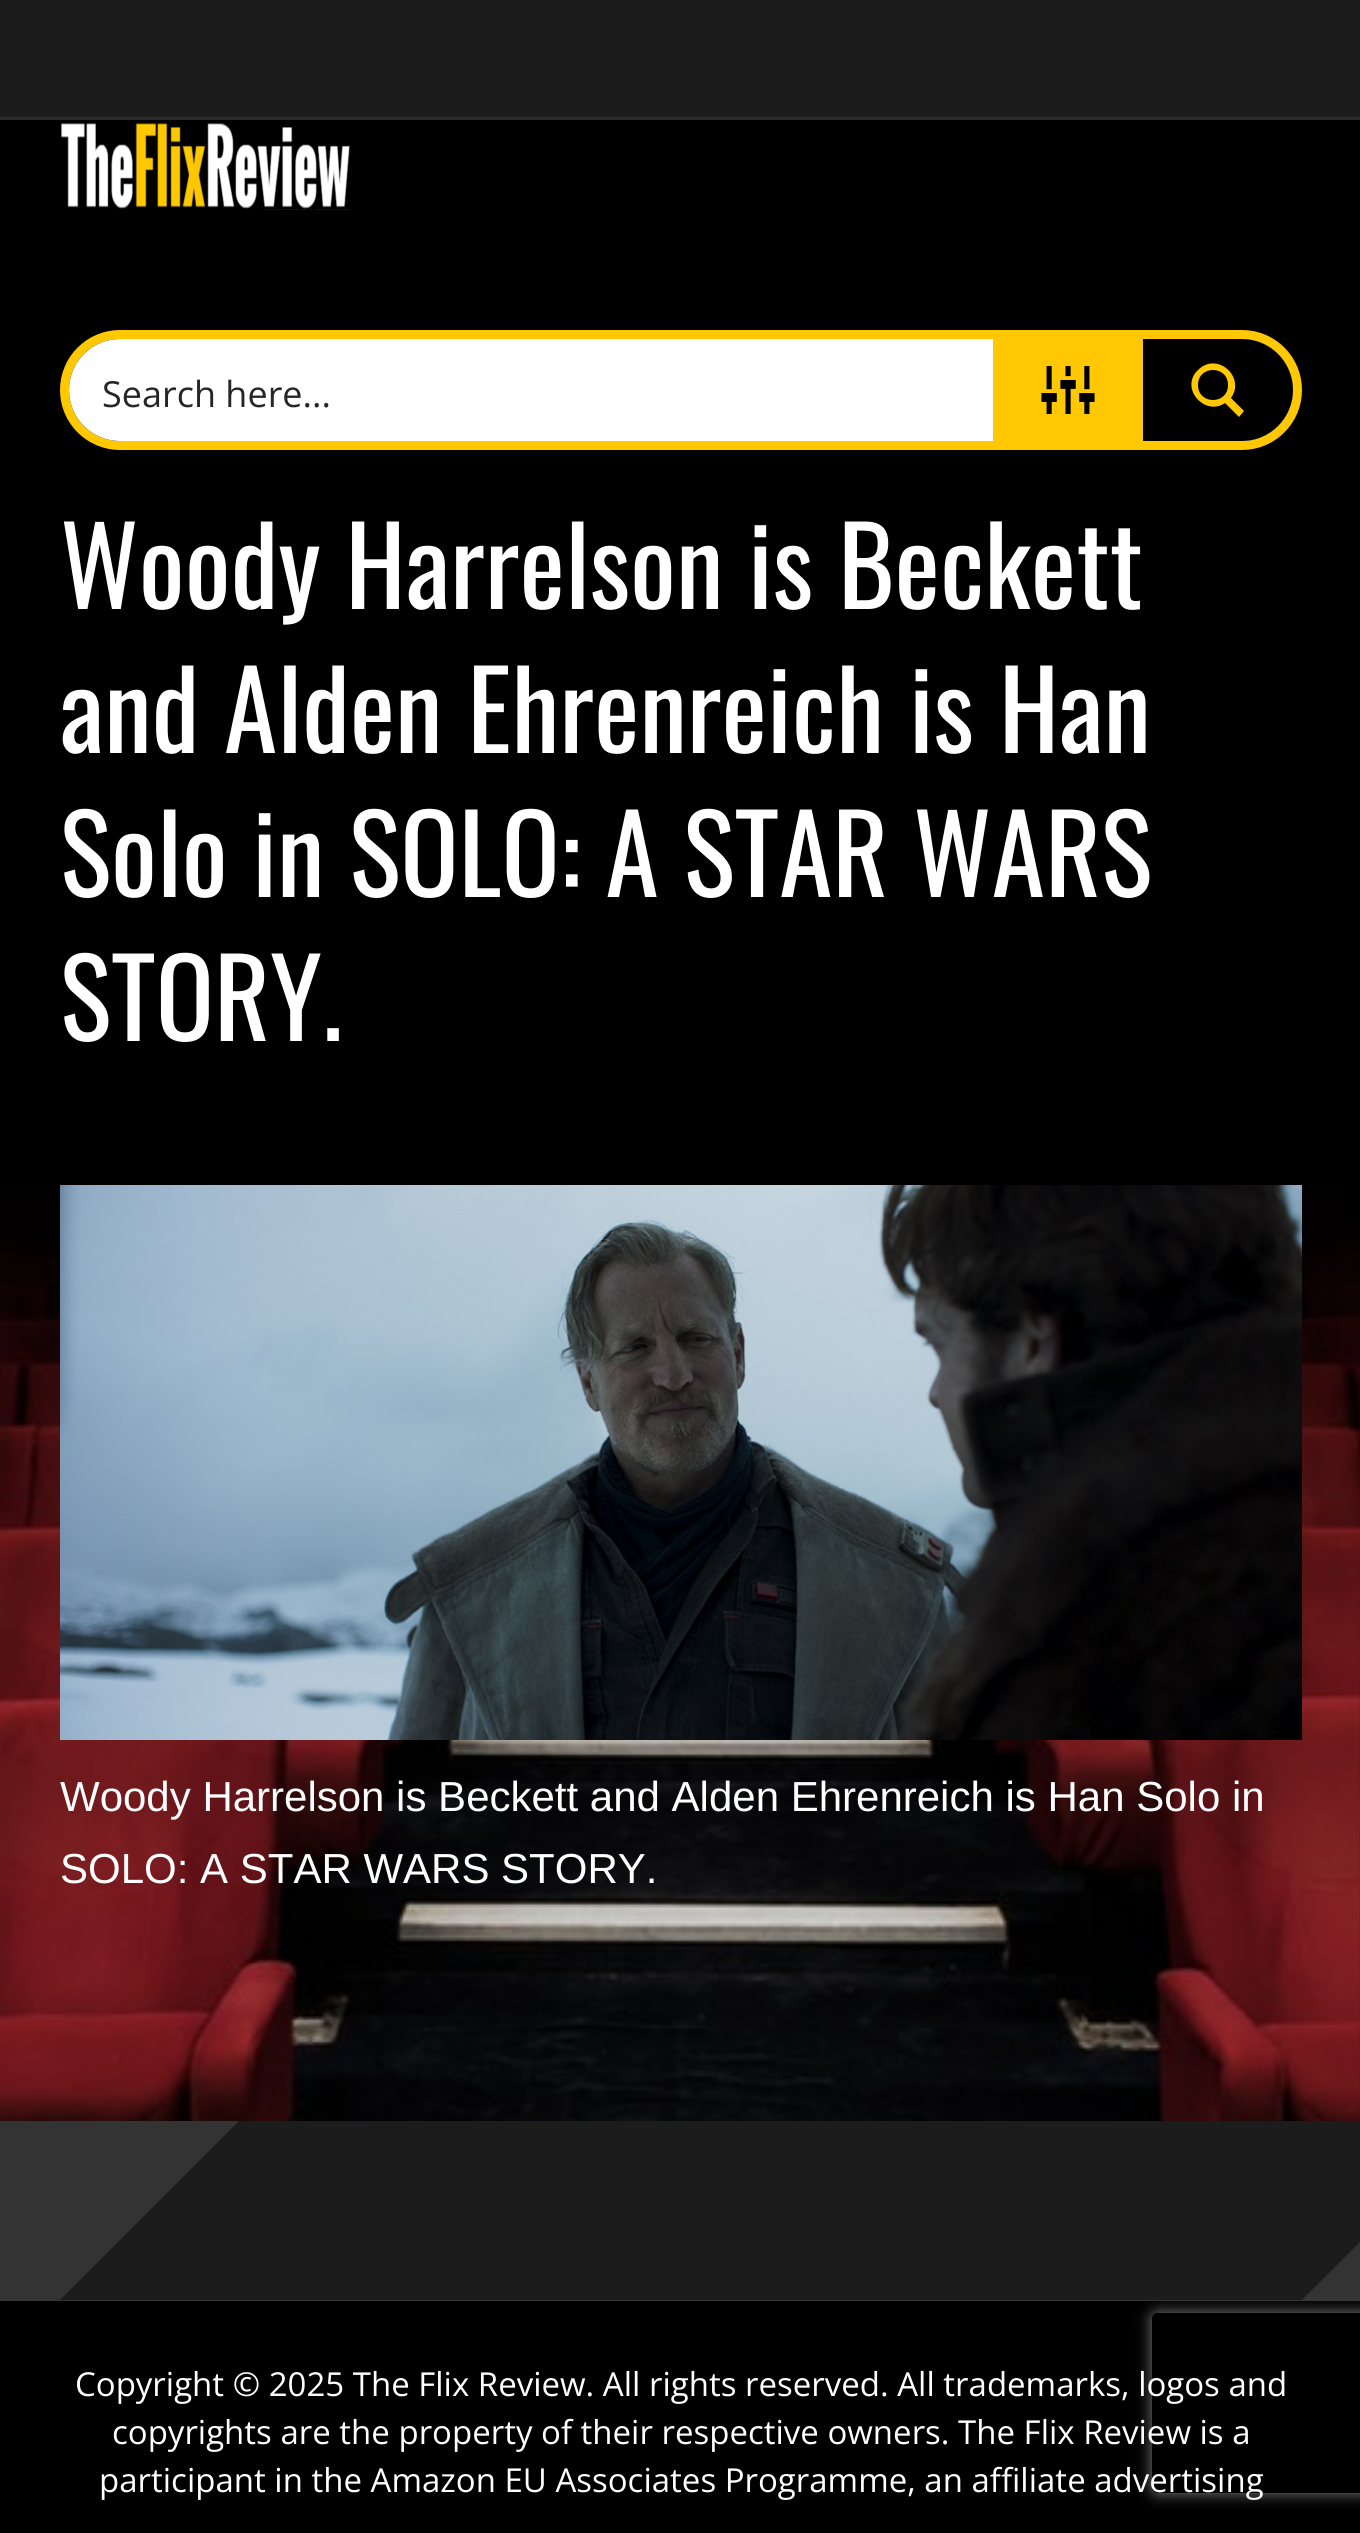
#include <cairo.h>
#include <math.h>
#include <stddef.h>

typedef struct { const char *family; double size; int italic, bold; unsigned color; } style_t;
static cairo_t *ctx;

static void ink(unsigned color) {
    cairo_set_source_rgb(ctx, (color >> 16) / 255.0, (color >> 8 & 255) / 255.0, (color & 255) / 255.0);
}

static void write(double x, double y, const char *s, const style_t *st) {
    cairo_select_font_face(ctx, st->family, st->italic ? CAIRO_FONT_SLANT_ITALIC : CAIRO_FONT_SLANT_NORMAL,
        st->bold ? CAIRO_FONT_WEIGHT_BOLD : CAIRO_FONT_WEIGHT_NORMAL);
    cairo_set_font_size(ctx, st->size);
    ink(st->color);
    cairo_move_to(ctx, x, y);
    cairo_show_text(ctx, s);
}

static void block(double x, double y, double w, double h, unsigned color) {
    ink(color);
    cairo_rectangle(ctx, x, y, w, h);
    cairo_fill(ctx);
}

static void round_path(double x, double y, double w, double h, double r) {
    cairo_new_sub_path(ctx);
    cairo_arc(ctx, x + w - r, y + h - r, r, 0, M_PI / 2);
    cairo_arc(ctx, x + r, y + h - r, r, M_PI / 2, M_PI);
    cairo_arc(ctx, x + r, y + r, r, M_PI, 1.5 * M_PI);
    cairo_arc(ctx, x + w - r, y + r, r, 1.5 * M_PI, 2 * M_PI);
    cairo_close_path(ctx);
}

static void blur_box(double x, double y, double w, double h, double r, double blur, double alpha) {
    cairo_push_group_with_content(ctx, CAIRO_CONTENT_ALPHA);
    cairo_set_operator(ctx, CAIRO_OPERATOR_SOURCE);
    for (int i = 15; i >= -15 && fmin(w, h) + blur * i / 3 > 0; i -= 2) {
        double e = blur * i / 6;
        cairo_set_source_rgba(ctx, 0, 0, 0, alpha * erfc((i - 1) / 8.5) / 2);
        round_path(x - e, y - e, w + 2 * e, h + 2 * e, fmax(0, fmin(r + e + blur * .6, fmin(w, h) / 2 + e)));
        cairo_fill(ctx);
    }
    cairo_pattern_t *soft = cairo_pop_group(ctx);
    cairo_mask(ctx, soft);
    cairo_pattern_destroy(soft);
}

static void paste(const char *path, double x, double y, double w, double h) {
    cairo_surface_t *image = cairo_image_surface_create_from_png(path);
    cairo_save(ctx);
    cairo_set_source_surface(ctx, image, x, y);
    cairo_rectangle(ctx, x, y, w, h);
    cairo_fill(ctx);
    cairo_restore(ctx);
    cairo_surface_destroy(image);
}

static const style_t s1 = {"Open Sans", 36, 0, 0, 0x262626};
static const style_t s2 = {"Oswald", 108, 0, 0, 0xffffff};
static const style_t s3 = {"Liberation Sans", 42, 0, 0, 0xffffff};
static const style_t s4 = {"Open Sans", 33, 0, 0, 0xffffff};

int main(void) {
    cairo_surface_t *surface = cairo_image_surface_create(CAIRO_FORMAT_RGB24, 1360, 2533);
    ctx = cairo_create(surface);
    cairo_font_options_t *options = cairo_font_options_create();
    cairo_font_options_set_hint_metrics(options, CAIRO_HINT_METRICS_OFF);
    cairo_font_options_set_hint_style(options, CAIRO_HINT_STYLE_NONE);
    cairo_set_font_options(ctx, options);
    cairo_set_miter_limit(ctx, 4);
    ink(0x000000);
    cairo_paint(ctx);
    paste("pic1.png", 0, 1189, 1360, 932);
    block(0, 0, 1360, 117, 0x1c1c1c);
    block(0, 117, 1360, 3, 0x292929);
    paste("pic2.png", 61, 123, 289, 87);
    round_path(64.5, 334.5, 1233, 111, 55.5);
    ink(0xffc800);
    cairo_set_line_width(ctx, 9);
    cairo_stroke(ctx);
    ink(0xffffff);
    round_path(69, 339, 1224, 102, 51);
    cairo_fill(ctx);
    write(102, 407, "Search here...", &s1);
    block(993, 339, 150, 102, 0xffc800);
    paste("pic3.png", 1041, 366, 54, 48);
    ink(0x000000);
    cairo_new_path(ctx);
    cairo_move_to(ctx, 1143, 339);
    cairo_line_to(ctx, 1242, 339);
    cairo_curve_to(ctx, 1270, 339, 1293, 362, 1293, 390);
    cairo_curve_to(ctx, 1293, 418, 1270, 441, 1242, 441);
    cairo_line_to(ctx, 1143, 441);
    cairo_close_path(ctx);
    cairo_fill(ctx);
    ink(0xffc800);
    cairo_new_path(ctx);
    cairo_move_to(ctx, 1244, 411);
    cairo_line_to(ctx, 1231, 398);
    cairo_curve_to(ctx, 1246, 377, 1217, 351, 1198, 370);
    cairo_curve_to(ctx, 1179, 388, 1205, 417, 1225, 403);
    cairo_line_to(ctx, 1239, 417);
    cairo_close_path(ctx);
    cairo_move_to(ctx, 1198, 385);
    cairo_curve_to(ctx, 1198, 365, 1228, 365, 1228, 385);
    cairo_curve_to(ctx, 1228, 405, 1198, 405, 1198, 385);
    cairo_close_path(ctx);
    cairo_fill(ctx);
    write(60, 609, "Woody Harrelson is Beckett", &s2);
    write(60, 753, "and Alden Ehrenreich is Han", &s2);
    write(60, 897, "Solo in SOLO: A STAR WARS", &s2);
    write(60, 1041, "STORY.", &s2);
    paste("pic4.png", 60, 1185, 1242, 555);
    write(60, 1811, "Woody Harrelson is Beckett and Alden Ehrenreich is Han Solo in", &s3);
    write(60, 1883, "SOLO: A STAR WARS STORY.", &s3);
    block(0, 2121, 1360, 180, 0x333333);
    cairo_save(ctx);
    cairo_set_fill_rule(ctx, CAIRO_FILL_RULE_EVEN_ODD);
    cairo_new_path(ctx);
    cairo_move_to(ctx, 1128, 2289);
    cairo_line_to(ctx, 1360, 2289);
    cairo_line_to(ctx, 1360, 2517);
    cairo_line_to(ctx, 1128, 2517);
    cairo_close_path(ctx);
    cairo_move_to(ctx, 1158, 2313);
    cairo_line_to(ctx, 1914, 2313);
    cairo_curve_to(ctx, 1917.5, 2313, 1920, 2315.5, 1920, 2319);
    cairo_line_to(ctx, 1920, 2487);
    cairo_curve_to(ctx, 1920, 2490.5, 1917.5, 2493, 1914, 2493);
    cairo_line_to(ctx, 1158, 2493);
    cairo_curve_to(ctx, 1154.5, 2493, 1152, 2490.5, 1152, 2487);
    cairo_line_to(ctx, 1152, 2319);
    cairo_curve_to(ctx, 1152, 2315.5, 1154.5, 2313, 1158, 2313);
    cairo_close_path(ctx);
    cairo_clip(ctx);
    ink(0x808080);
    blur_box(1152, 2313, 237, 180, 6, 7.5, 1);
    cairo_restore(ctx);
    cairo_save(ctx);
    cairo_rectangle(ctx, 0, 2121, 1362, 180);
    cairo_clip(ctx);
    ink(0x1c1c1c);
    cairo_new_path(ctx);
    cairo_move_to(ctx, 240, 2120);
    cairo_line_to(ctx, 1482, 2120);
    cairo_line_to(ctx, 1302, 2300);
    cairo_line_to(ctx, 60, 2300);
    cairo_close_path(ctx);
    cairo_fill(ctx);
    cairo_restore(ctx);
    write(75, 2396, "Copyright © 2025 The Flix Review. All rights reserved. All trademarks, logos and", &s4);
    write(112, 2444, "copyrights are the property of their respective owners. The Flix Review is a", &s4);
    write(99, 2492, "participant in the Amazon EU Associates Programme, an affiliate advertising", &s4);
    cairo_surface_write_to_png(surface, "screenshot.png");
    cairo_font_options_destroy(options);
    cairo_destroy(ctx);
    cairo_surface_destroy(surface);
    return 0;
}
